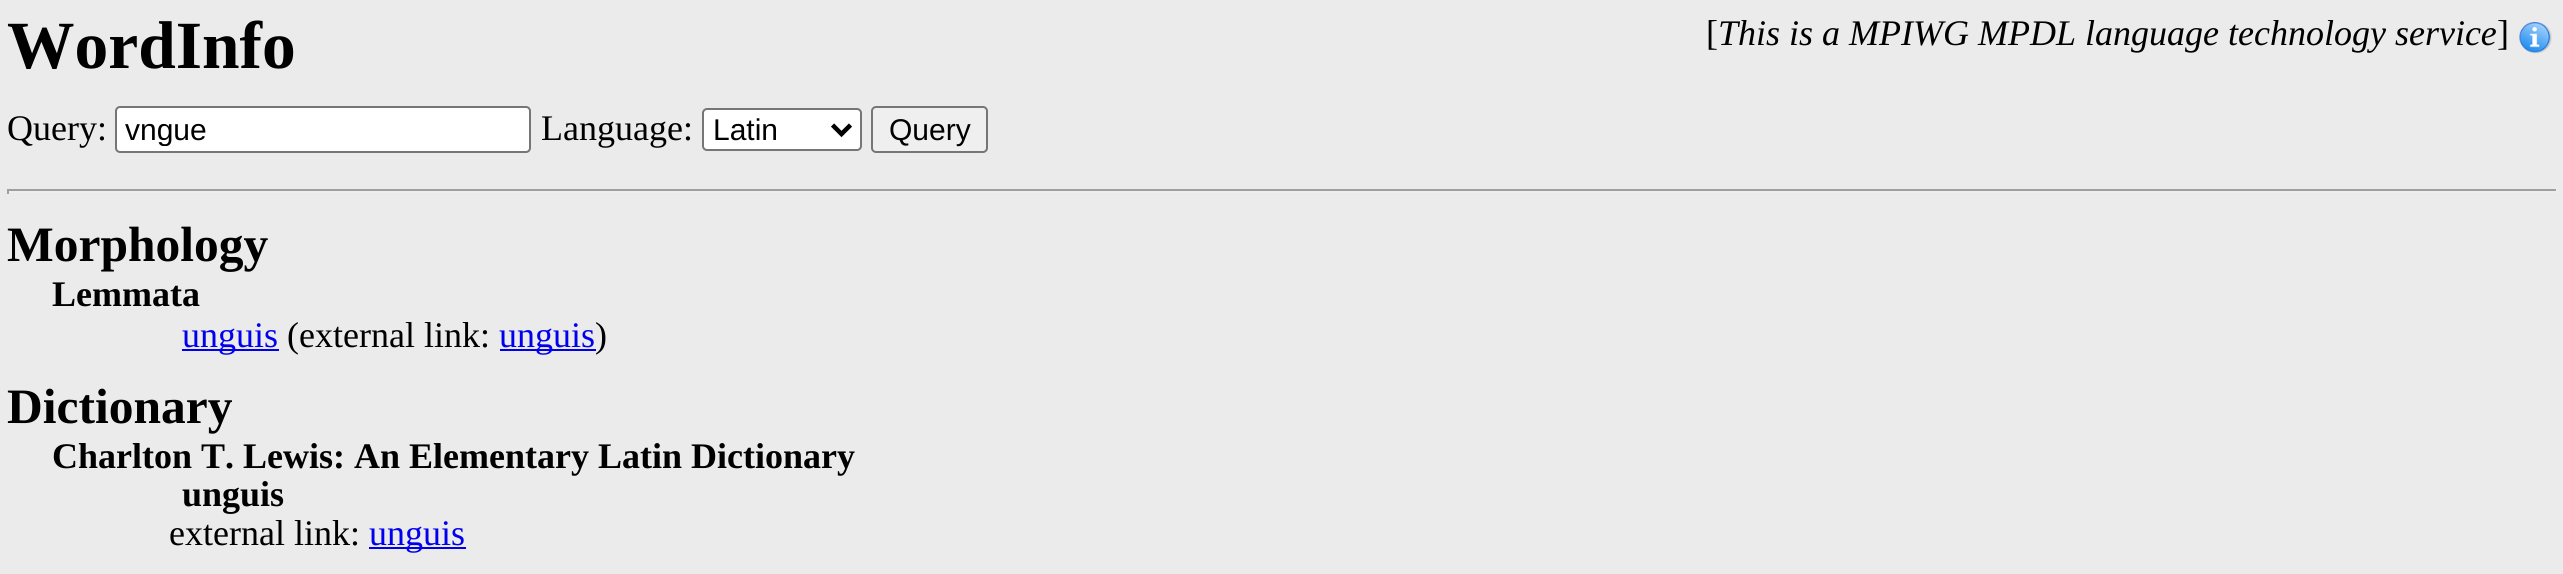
#include <cairo.h>
#include <math.h>
#include <stddef.h>

typedef struct { const char *family; double size; int italic, bold; unsigned color; } style_t;
static cairo_t *ctx;

static void ink(unsigned color) {
    cairo_set_source_rgb(ctx, (color >> 16) / 255.0, (color >> 8 & 255) / 255.0, (color & 255) / 255.0);
}

static void write(double x, double y, const char *s, const style_t *st) {
    cairo_select_font_face(ctx, st->family, st->italic ? CAIRO_FONT_SLANT_ITALIC : CAIRO_FONT_SLANT_NORMAL,
        st->bold ? CAIRO_FONT_WEIGHT_BOLD : CAIRO_FONT_WEIGHT_NORMAL);
    cairo_set_font_size(ctx, st->size);
    ink(st->color);
    cairo_move_to(ctx, x, y);
    cairo_show_text(ctx, s);
}

static void block(double x, double y, double w, double h, unsigned color) {
    ink(color);
    cairo_rectangle(ctx, x, y, w, h);
    cairo_fill(ctx);
}

static void round_path(double x, double y, double w, double h, double r) {
    cairo_new_sub_path(ctx);
    cairo_arc(ctx, x + w - r, y + h - r, r, 0, M_PI / 2);
    cairo_arc(ctx, x + r, y + h - r, r, M_PI / 2, M_PI);
    cairo_arc(ctx, x + r, y + r, r, M_PI, 1.5 * M_PI);
    cairo_arc(ctx, x + w - r, y + r, r, 1.5 * M_PI, 2 * M_PI);
    cairo_close_path(ctx);
}

static void paste(const char *path, double x, double y, double w, double h) {
    cairo_surface_t *image = cairo_image_surface_create_from_png(path);
    cairo_save(ctx);
    cairo_set_source_surface(ctx, image, x, y);
    cairo_rectangle(ctx, x, y, w, h);
    cairo_fill(ctx);
    cairo_restore(ctx);
    cairo_surface_destroy(image);
}

static const style_t s1 = {"Liberation Serif", 67.5, 0, 1, 0x000000};
static const style_t s2 = {"Liberation Serif", 36, 0, 0, 0x000000};
static const style_t s3 = {"Liberation Serif", 36, 1, 0, 0x000000};
static const style_t s4 = {"Liberation Sans", 30, 0, 0, 0x000000};
static const style_t s5 = {"Liberation Serif", 49.5, 0, 1, 0x000000};
static const style_t s6 = {"Liberation Serif", 36, 0, 1, 0x000000};
static const style_t s7 = {"Liberation Serif", 36, 0, 0, 0x0000ee};

int main(void) {
    cairo_surface_t *surface = cairo_image_surface_create(CAIRO_FORMAT_RGB24, 2563, 574);
    ctx = cairo_create(surface);
    cairo_font_options_t *options = cairo_font_options_create();
    cairo_font_options_set_hint_metrics(options, CAIRO_HINT_METRICS_OFF);
    cairo_font_options_set_hint_style(options, CAIRO_HINT_STYLE_NONE);
    cairo_set_font_options(ctx, options);
    cairo_set_miter_limit(ctx, 4);
    ink(0xebebeb);
    cairo_paint(ctx);
    write(7, 68, "WordInfo", &s1);
    write(1706, 45, "[", &s2);
    write(1718, 45, "This is a MPIWG MPDL language technology service", &s3);
    write(2497, 45, "]", &s2);
    paste("pic1.png", 2519, 22, 33, 32);
    write(7, 140, "Query:", &s2);
    ink(0xffffff);
    round_path(116, 107, 414, 45, 4);
    cairo_fill_preserve(ctx);
    ink(0x767676);
    cairo_stroke(ctx);
    cairo_save(ctx);
    cairo_rectangle(ctx, 124, 113, 398, 33);
    cairo_clip(ctx);
    write(125, 140, "vngue", &s4);
    cairo_restore(ctx);
    write(541, 140, "Language:", &s2);
    ink(0xffffff);
    round_path(703, 109, 158, 41, 4);
    cairo_fill_preserve(ctx);
    ink(0x767676);
    cairo_stroke(ctx);
    cairo_new_path(ctx);
    cairo_move_to(ctx, 832.5, 125);
    cairo_line_to(ctx, 841.5, 134);
    cairo_line_to(ctx, 850.5, 125);
    ink(0x000000);
    cairo_set_line_width(ctx, 4.5);
    cairo_stroke(ctx);
    write(713, 140, "Latin", &s4);
    ink(0xefefef);
    round_path(872, 107, 115, 45, 4);
    cairo_fill_preserve(ctx);
    ink(0x767676);
    cairo_set_line_width(ctx, 2);
    cairo_stroke(ctx);
    write(889, 140, "Query", &s4);
    block(7, 189, 2551, 2, 0x9f9f9f);
    block(2556, 189, 2, 5, 0xeeeeee);
    block(7, 191, 2551, 2, 0xeeeeee);
    block(7, 189, 2, 5, 0x9f9f9f);
    write(7, 261, "Morphology", &s5);
    write(52, 306, "Lemmata", &s6);
    block(182, 349, 97, 2, 0x0000ee);
    write(182, 347, "unguis", &s7);
    write(287, 347, "(external link:", &s2);
    block(500, 349, 96, 2, 0x0000ee);
    write(499, 347, "unguis", &s7);
    write(595, 347, ")", &s2);
    write(7, 423, "Dictionary", &s5);
    write(52, 468, "Charlton T. Lewis: An Elementary Latin Dictionary", &s6);
    write(182, 506, "unguis", &s6);
    write(169, 545, "external link:", &s2);
    block(369, 547, 97, 2, 0x0000ee);
    write(369, 545, "unguis", &s7);
    cairo_surface_write_to_png(surface, "screenshot.png");
    cairo_font_options_destroy(options);
    cairo_destroy(ctx);
    cairo_surface_destroy(surface);
    return 0;
}
